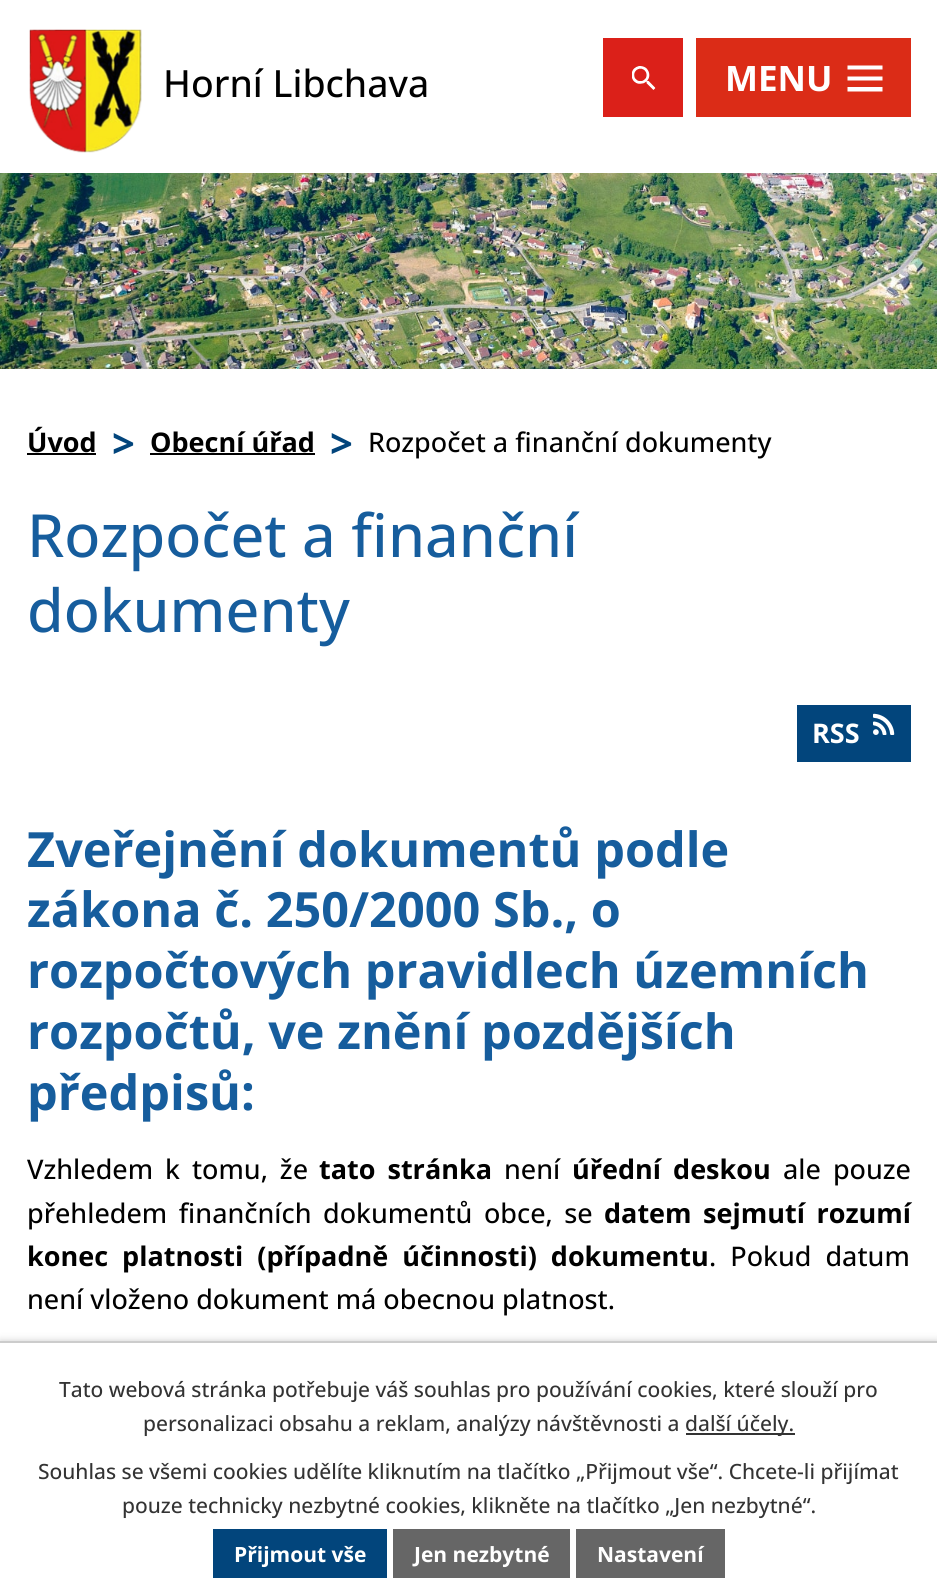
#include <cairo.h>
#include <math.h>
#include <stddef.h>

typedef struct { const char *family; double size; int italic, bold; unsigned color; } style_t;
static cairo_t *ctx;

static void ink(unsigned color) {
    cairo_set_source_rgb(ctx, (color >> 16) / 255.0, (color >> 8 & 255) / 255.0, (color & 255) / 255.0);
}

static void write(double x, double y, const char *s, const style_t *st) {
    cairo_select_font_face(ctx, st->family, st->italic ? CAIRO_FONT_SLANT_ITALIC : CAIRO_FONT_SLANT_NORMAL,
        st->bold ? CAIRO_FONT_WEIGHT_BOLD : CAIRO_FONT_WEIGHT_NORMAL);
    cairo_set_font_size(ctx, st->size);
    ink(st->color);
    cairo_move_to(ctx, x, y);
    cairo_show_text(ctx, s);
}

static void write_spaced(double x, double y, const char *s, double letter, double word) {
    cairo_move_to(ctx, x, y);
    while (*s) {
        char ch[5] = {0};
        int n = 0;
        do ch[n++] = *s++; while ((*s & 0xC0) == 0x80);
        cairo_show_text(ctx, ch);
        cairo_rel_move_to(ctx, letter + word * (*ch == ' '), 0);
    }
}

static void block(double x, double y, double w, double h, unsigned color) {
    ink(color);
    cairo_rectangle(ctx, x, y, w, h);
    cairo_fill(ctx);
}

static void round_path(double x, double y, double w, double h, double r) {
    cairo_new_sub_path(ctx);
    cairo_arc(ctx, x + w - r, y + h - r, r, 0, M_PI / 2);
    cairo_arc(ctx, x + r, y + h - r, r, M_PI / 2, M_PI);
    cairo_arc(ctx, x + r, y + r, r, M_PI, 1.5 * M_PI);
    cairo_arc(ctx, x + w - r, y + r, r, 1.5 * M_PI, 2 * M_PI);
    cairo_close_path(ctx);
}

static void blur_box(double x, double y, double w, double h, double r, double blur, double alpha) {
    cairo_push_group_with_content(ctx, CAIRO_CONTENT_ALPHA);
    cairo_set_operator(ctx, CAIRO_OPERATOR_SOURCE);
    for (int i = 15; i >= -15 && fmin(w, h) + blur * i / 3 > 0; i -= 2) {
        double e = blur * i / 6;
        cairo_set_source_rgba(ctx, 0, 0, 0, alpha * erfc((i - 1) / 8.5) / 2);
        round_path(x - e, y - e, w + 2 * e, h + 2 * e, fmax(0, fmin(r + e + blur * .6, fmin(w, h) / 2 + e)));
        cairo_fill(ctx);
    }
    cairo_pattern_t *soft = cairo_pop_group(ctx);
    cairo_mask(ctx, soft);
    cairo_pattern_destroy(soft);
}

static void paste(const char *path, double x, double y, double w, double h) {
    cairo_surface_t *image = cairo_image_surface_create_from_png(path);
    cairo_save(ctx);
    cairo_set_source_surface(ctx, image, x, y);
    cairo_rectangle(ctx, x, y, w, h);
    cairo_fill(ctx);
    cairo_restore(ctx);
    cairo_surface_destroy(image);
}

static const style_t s1 = {"Open Sans Medium", 37.5, 0, 0, 0x000000};
static const style_t s2 = {"Open Sans", 35, 0, 1, 0xffffff};
static const style_t s3 = {"Open Sans", 27, 0, 1, 0x000000};
static const style_t s4 = {"Open Sans", 40, 0, 1, 0x02457c};
static const style_t s5 = {"Open Sans Medium", 27, 0, 0, 0x000000};
static const style_t s6 = {"Open Sans Medium", 59.5, 0, 0, 0x165d9d};
static const style_t s7 = {"Open Sans", 27, 0, 1, 0xffffff};
static const style_t s8 = {"Open Sans", 48.6, 0, 1, 0x165d9d};
static const style_t s9 = {"Open Sans Medium", 21, 0, 0, 0x333333};
static const style_t s10 = {"Open Sans", 21, 0, 1, 0xffffff};

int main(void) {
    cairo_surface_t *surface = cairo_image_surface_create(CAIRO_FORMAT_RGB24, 937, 1583);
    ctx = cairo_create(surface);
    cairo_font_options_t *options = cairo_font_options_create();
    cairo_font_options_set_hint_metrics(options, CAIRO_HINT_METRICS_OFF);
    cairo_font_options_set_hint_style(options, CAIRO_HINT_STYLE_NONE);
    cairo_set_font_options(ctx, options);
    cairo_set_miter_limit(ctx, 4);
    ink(0xffffff);
    cairo_paint(ctx);
    paste("pic1.png", 29, 29, 113, 124);
    write(163, 97, "Horní Libchava", &s1);
    block(603, 38, 80, 79, 0xdb2019);
    paste("pic2.png", 632, 66, 24, 24);
    paste("pic3.png", 0, 173, 937, 196);
    block(696, 38, 215, 79, 0xdb2c17);
    write(725, 91, "MENU", &s2);
    cairo_new_path(ctx);
    cairo_move_to(ctx, 847.5, 91.5);
    cairo_line_to(ctx, 847.5, 87);
    cairo_line_to(ctx, 882.5, 87);
    cairo_line_to(ctx, 882.5, 91.5);
    cairo_close_path(ctx);
    cairo_move_to(ctx, 847.5, 65.5);
    cairo_line_to(ctx, 882.5, 65.5);
    cairo_line_to(ctx, 882.5, 69.5);
    cairo_line_to(ctx, 847.5, 69.5);
    cairo_close_path(ctx);
    cairo_move_to(ctx, 847.5, 80.5);
    cairo_line_to(ctx, 847.5, 76.5);
    cairo_line_to(ctx, 882.5, 76.5);
    cairo_line_to(ctx, 882.5, 80.5);
    cairo_close_path(ctx);
    cairo_fill(ctx);
    write(27, 452, "Úvod", &s3);
    block(27, 453, 69, 2, 0x000000);
    write(112, 458, ">", &s4);
    write(150, 452, "Obecní úřad", &s3);
    block(150, 453, 165, 2, 0x000000);
    write(330, 458, ">", &s4);
    write(368, 452, "Rozpočet a finanční dokumenty", &s5);
    write(27, 557, "Rozpočet a finanční", &s6);
    write(27, 632, "dokumenty", &s6);
    block(797, 705, 114, 57, 0x02457c);
    write(812, 743, "RSS", &s7);
    paste("pic4.png", 873, 713, 22, 22);
    write(27, 867, "Zveřejnění dokumentů podle", &s8);
    write(27, 927, "zákona č. 250/2000 Sb., o", &s8);
    write(27, 988, "rozpočtových pravidlech územních", &s8);
    write(27, 1049, "rozpočtů, ve znění pozdějších", &s8);
    write(27, 1110, "předpisů:", &s8);
    cairo_select_font_face(ctx, "Open Sans Medium", CAIRO_FONT_SLANT_NORMAL, CAIRO_FONT_WEIGHT_NORMAL);
    cairo_set_font_size(ctx, 27);
    ink(0x000000);
    write_spaced(27, 1179, "Vzhledem k tomu, že", 0, 5);
    cairo_select_font_face(ctx, "Open Sans", CAIRO_FONT_SLANT_NORMAL, CAIRO_FONT_WEIGHT_BOLD);
    write_spaced(319, 1179, "tato stránka", 0, 5);
    write(504, 1179, "není", &s5);
    cairo_select_font_face(ctx, "Open Sans", CAIRO_FONT_SLANT_NORMAL, CAIRO_FONT_WEIGHT_BOLD);
    write_spaced(572, 1179, "úřední deskou", 0, 5);
    cairo_select_font_face(ctx, "Open Sans Medium", CAIRO_FONT_SLANT_NORMAL, CAIRO_FONT_WEIGHT_NORMAL);
    write_spaced(783, 1179, "ale pouze", 0, 5);
    write_spaced(27, 1223, "přehledem finančních dokumentů obce, se", 0, 4.5);
    cairo_select_font_face(ctx, "Open Sans", CAIRO_FONT_SLANT_NORMAL, CAIRO_FONT_WEIGHT_BOLD);
    write_spaced(604, 1223, "datem sejmutí rozumí", 0, 4.5);
    write_spaced(27, 1266, "konec platnosti (případně účinnosti) dokumentu", 0, 7);
    cairo_select_font_face(ctx, "Open Sans Medium", CAIRO_FONT_SLANT_NORMAL, CAIRO_FONT_WEIGHT_NORMAL);
    write_spaced(709, 1266, ". Pokud datum", 0, 7);
    write(27, 1309, "není vloženo dokument má obecnou platnost.", &s5);
    ink(0x000000);
    blur_box(0, 1341, 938, 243, 0, 4, 0.2);
    block(0, 1343, 937, 240, 0xffffff);
    block(0, 1341, 937, 2, 0xcccccc);
    write(59, 1397, "Tato webová stránka potřebuje váš souhlas pro používání cookies, které slouží pro", &s9);
    write(143, 1431, "personalizaci obsahu a reklam, analýzy návštěvnosti a", &s9);
    block(686, 1433, 109, 2, 0x333333);
    write(685, 1431, "další účely.", &s9);
    write(38, 1479, "Souhlas se všemi cookies udělíte kliknutím na tlačítko „Přijmout vše“. Chcete-li přijímat", &s9);
    write(122, 1513, "pouze technicky nezbytné cookies, klikněte na tlačítko „Jen nezbytné“.", &s9);
    block(213, 1529, 174, 49, 0x02457c);
    write(234, 1562, "Přijmout vše", &s10);
    block(393, 1529, 177, 49, 0x666666);
    write(414, 1562, "Jen nezbytné", &s10);
    block(576, 1529, 149, 49, 0x666666);
    write(597, 1562, "Nastavení", &s10);
    cairo_surface_write_to_png(surface, "screenshot.png");
    cairo_font_options_destroy(options);
    cairo_destroy(ctx);
    cairo_surface_destroy(surface);
    return 0;
}
